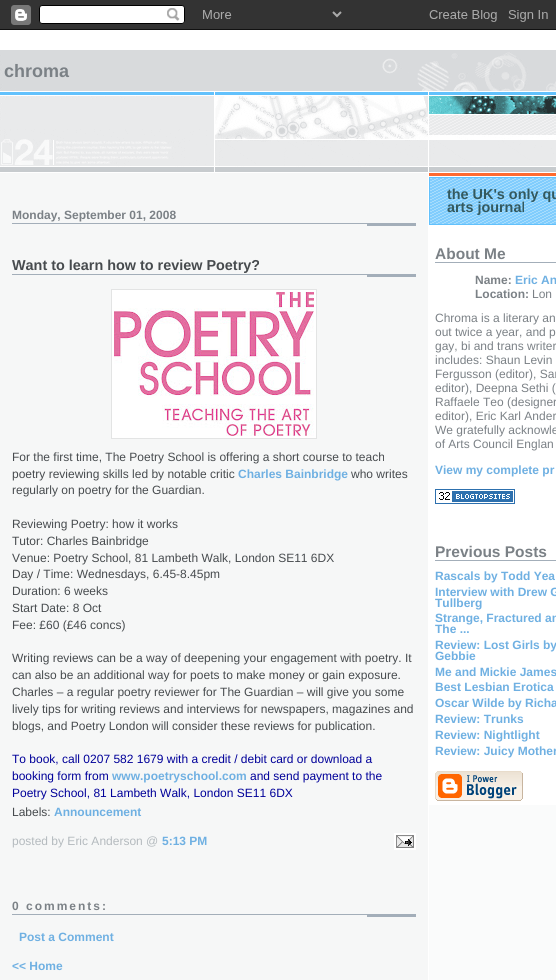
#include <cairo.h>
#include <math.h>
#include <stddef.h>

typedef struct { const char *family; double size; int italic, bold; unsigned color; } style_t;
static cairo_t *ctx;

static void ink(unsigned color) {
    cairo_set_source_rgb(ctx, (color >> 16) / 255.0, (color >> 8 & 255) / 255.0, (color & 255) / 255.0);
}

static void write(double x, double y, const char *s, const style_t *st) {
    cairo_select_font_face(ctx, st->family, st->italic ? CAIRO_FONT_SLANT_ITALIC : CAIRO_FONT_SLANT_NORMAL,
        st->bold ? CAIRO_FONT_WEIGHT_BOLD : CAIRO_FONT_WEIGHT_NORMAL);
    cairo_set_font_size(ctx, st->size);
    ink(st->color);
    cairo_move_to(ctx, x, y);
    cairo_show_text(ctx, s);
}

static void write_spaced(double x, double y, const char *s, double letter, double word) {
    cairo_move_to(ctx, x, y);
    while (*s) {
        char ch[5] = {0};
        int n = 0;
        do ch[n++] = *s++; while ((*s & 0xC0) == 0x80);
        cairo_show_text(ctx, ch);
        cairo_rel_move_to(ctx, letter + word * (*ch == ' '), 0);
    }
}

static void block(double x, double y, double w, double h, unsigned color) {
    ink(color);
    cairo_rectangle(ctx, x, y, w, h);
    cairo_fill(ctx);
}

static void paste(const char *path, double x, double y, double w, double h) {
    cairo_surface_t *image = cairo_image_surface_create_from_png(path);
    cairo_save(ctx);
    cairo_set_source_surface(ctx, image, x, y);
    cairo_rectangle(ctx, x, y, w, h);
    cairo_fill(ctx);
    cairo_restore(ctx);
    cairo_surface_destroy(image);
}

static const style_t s1 = {"Liberation Sans", 18, 0, 1, 0x7b8186};
static const style_t s2 = {"Liberation Sans", 12, 0, 1, 0x7b8186};
static const style_t s3 = {"Liberation Sans", 14.4, 0, 1, 0x474b4e};
static const style_t s4 = {"Liberation Sans", 12, 0, 0, 0x474b4e};
static const style_t s5 = {"Liberation Sans", 12, 0, 1, 0x6fb0e2};
static const style_t s6 = {"Liberation Sans", 12, 0, 0, 0x000099};
static const style_t s7 = {"Liberation Sans", 12, 0, 0, 0xb4babe};
static const style_t s8 = {"Liberation Sans", 14.4, 0, 1, 0x33595e};
static const style_t s9 = {"Liberation Sans", 15.5, 0, 1, 0x7b8186};
static const style_t s10 = {"Liberation Sans", 12, 0, 0, 0x7b8186};

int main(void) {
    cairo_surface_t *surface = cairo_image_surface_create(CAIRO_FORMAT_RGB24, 556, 980);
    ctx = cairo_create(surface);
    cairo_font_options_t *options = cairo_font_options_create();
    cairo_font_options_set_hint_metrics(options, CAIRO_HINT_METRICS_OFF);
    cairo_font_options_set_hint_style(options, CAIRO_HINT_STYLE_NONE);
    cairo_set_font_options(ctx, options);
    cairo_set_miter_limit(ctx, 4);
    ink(0xffffff);
    cairo_paint(ctx);
    paste("pic1.png", 0, 0, 556, 30);
    paste("pic2.png", 0, 173, 556, 807);
    block(0, 50, 556, 2, 0xd8dadc);
    paste("pic3.png", 0, 52, 556, 120);
    write(4, 77, "chroma", &s1);
    paste("pic4.png", 12, 223, 404, 3);
    write(12, 219, "Monday, September 01, 2008", &s2);
    paste("pic4.png", 12, 274, 404, 3);
    write(12, 270, "Want to learn how to review Poetry?", &s3);
    ink(0xffffff);
    cairo_rectangle(ctx, 111.5, 289.5, 205, 149);
    cairo_fill_preserve(ctx);
    ink(0xe3e4e4);
    cairo_set_line_width(ctx, 1);
    cairo_stroke(ctx);
    paste("pic5.png", 114, 292, 200, 144);
    write(12, 461, "For the first time, The Poetry School is offering a short course to teach", &s4);
    write(12, 478, "poetry reviewing skills led by notable critic", &s4);
    write(238, 478, "Charles Bainbridge", &s5);
    write(351, 478, "who writes", &s4);
    write(12, 494, "regularly on poetry for the Guardian.", &s4);
    write(12, 528, "Reviewing Poetry: how it works", &s4);
    write(12, 545, "Tutor: Charles Bainbridge", &s4);
    write(12, 562, "Venue: Poetry School, 81 Lambeth Walk, London SE11 6DX", &s4);
    write(12, 578, "Day / Time: Wednesdays, 6.45-8.45pm", &s4);
    write(12, 595, "Duration: 6 weeks", &s4);
    write(12, 612, "Start Date: 8 Oct", &s4);
    write(12, 629, "Fee: £60 (£46 concs)", &s4);
    write(12, 662, "Writing reviews can be a way of deepening your engagement with poetry. It", &s4);
    write(12, 679, "can also be an additional way for poets to make money or gain exposure.", &s4);
    write(12, 696, "Charles – a regular poetry reviewer for The Guardian – will give you some", &s4);
    write(12, 713, "lively tips for writing reviews and interviews for newspapers, magazines and", &s4);
    write(12, 730, "blogs, and Poetry London will consider these reviews for publication.", &s4);
    write(12, 763, "To book, call 0207 582 1679 with a credit / debit card or download a", &s6);
    write(12, 780, "booking form from", &s6);
    write(112, 780, "www.poetryschool.com", &s5);
    write(250, 780, "and send payment to the", &s6);
    write(12, 797, "Poetry School, 81 Lambeth Walk, London SE11 6DX", &s6);
    write(12, 816, "Labels:", &s4);
    write(54, 816, "Announcement", &s5);
    block(394, 833, 22, 17, 0xffffff);
    write(12, 845, "posted by Eric Anderson @", &s7);
    write(162, 845, "5:13 PM", &s5);
    paste("pic6.png", 396, 835, 18, 13);
    paste("pic4.png", 12, 914, 404, 3);
    ink(0x7b8186);
    write_spaced(12, 910, "0 comments:", 2, 0);
    write(19, 941, "Post a Comment", &s5);
    write(12, 970, "<< Home", &s5);
    block(429, 173, 127, 632, 0xffffff);
    block(429, 173, 127, 3, 0xff6a2e);
    paste("pic7.png", 430, 178, 126, 46);
    cairo_rectangle(ctx, 429.5, 177.5, 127, 47);
    ink(0x62c1fc);
    cairo_stroke(ctx);
    write(447, 199, "the UK's only qu", &s8);
    write(447, 212, "arts journal", &s8);
    block(435, 262, 121, 1, 0xa3aeb9);
    write(435, 259, "About Me", &s9);
    write(475, 284, "Name:", &s2);
    write(515, 284, "Eric An", &s5);
    write(475, 298, "Location:", &s2);
    write(532, 298, "Lon", &s10);
    write(435, 322, "Chroma is a literary an", &s10);
    write(435, 336, "out twice a year, and p", &s10);
    write(435, 350, "gay, bi and trans writer", &s10);
    write(435, 364, "includes: Shaun Levin", &s10);
    write(435, 378, "Fergusson (editor), Sar", &s10);
    write(435, 392, "editor), Deepna Sethi (", &s10);
    write(435, 406, "Raffaele Teo (designer", &s10);
    write(435, 420, "editor), Eric Karl Ander", &s10);
    write(435, 434, "We gratefully acknowle", &s10);
    write(435, 448, "of Arts Council Englan", &s10);
    write(435, 474, "View my complete pr", &s5);
    paste("pic8.png", 435, 489, 80, 15);
    block(435, 560, 121, 1, 0xa3aeb9);
    write(435, 557, "Previous Posts", &s9);
    write(435, 580, "Rascals by Todd Yea", &s5);
    write(435, 596, "Interview with Drew G", &s5);
    write(435, 607, "Tullberg", &s5);
    write(435, 622, "Strange, Fractured an", &s5);
    write(435, 633, "The ...", &s5);
    write(435, 649, "Review: Lost Girls by", &s5);
    write(435, 660, "Gebbie", &s5);
    write(435, 676, "Me and Mickie James", &s5);
    write(435, 691, "Best Lesbian Erotica", &s5);
    write(435, 707, "Oscar Wilde by Richa", &s5);
    write(435, 723, "Review: Trunks", &s5);
    write(435, 739, "Review: Nightlight", &s5);
    write(435, 755, "Review: Juicy Mother", &s5);
    paste("pic9.png", 435, 771, 88, 30);
    cairo_surface_write_to_png(surface, "screenshot.png");
    cairo_font_options_destroy(options);
    cairo_destroy(ctx);
    cairo_surface_destroy(surface);
    return 0;
}
